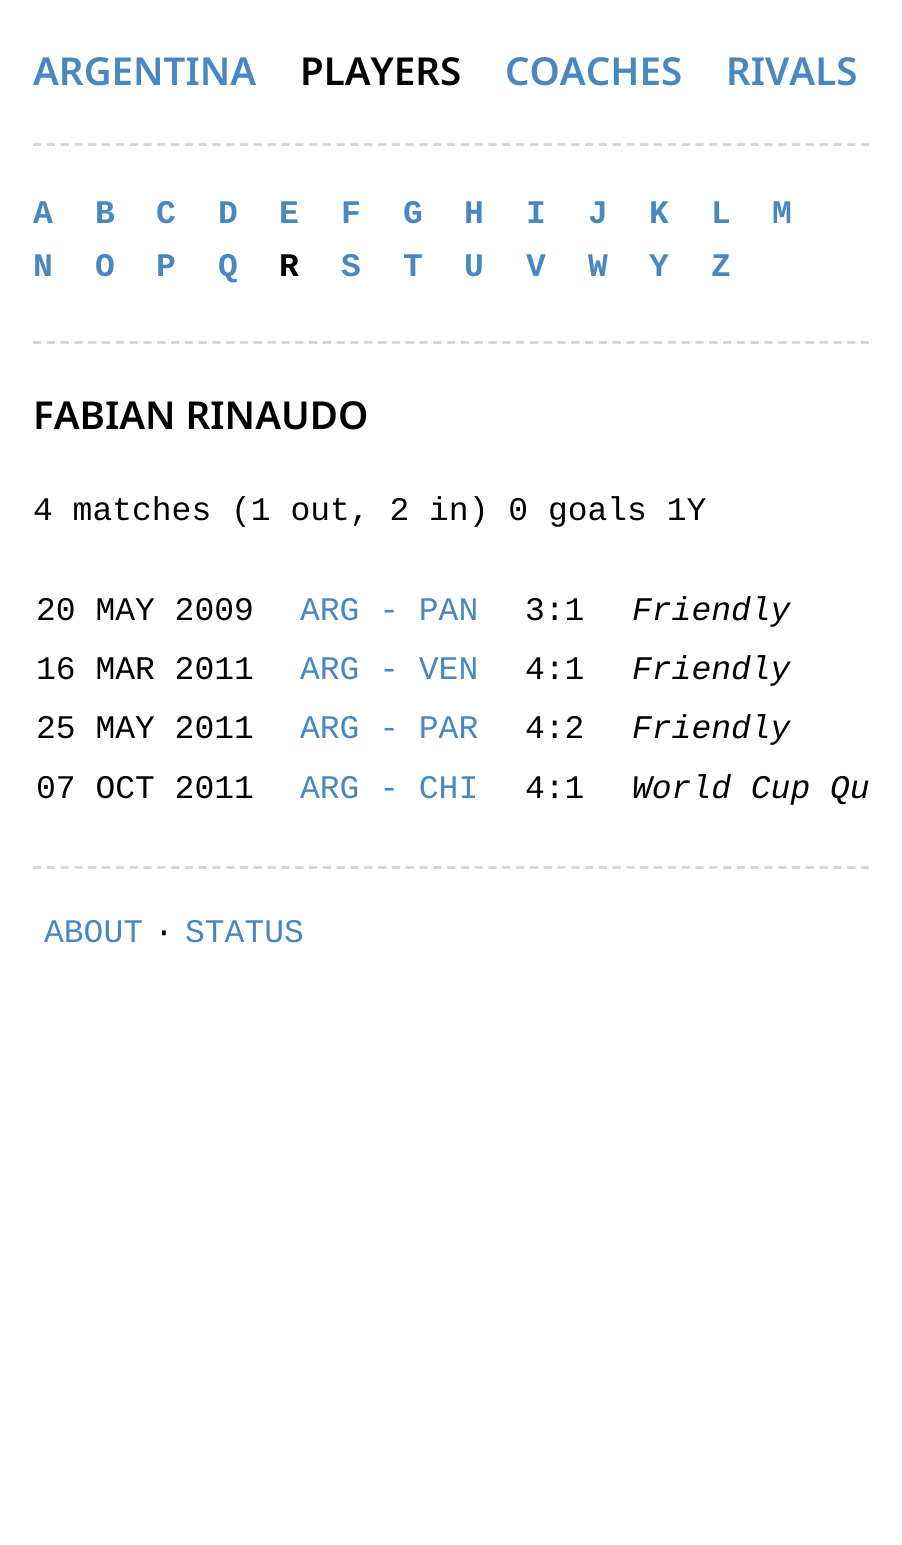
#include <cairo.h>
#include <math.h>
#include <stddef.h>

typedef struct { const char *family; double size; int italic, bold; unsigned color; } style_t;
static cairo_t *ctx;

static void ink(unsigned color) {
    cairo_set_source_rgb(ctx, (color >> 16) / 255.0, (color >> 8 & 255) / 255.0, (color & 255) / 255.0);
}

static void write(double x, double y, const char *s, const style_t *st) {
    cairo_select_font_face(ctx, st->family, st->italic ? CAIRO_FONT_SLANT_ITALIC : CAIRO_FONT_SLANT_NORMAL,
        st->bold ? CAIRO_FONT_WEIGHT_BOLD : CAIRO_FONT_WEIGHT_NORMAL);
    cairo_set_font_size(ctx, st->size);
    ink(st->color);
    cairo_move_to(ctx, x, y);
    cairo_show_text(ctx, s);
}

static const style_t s1 = {"Noto Sans SemiBold", 38.5, 0, 0, 0x4887bf};
static const style_t s2 = {"Noto Sans SemiBold", 38.5, 0, 0, 0x000000};
static const style_t s3 = {"Liberation Mono", 33, 0, 1, 0x4887bf};
static const style_t s4 = {"Liberation Mono", 33, 0, 1, 0x000000};
static const style_t s5 = {"Liberation Mono", 33, 0, 0, 0x000000};
static const style_t s6 = {"Liberation Mono", 33, 0, 0, 0x4887bf};
static const style_t s7 = {"Liberation Mono", 33, 1, 0, 0x000000};

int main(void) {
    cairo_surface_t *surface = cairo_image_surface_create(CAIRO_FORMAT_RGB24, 902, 1545);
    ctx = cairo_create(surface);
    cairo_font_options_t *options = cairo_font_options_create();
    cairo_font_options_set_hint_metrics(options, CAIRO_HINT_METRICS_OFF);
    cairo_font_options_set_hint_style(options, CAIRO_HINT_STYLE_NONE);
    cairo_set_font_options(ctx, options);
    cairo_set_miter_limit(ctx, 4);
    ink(0xffffff);
    cairo_paint(ctx);
    cairo_new_path(ctx);
    cairo_move_to(ctx, 33, 144.5);
    cairo_line_to(ctx, 869, 144.5);
    ink(0xd1d5db);
    cairo_set_line_width(ctx, 2.8);
    cairo_set_dash(ctx, (double[]){8.25, 5.55}, 2, 0);
    cairo_stroke(ctx);
    write(33, 85, "ARGENTINA", &s1);
    write(300, 85, "PLAYERS", &s2);
    write(505, 85, "COACHES", &s1);
    write(726, 85, "RIVALS", &s1);
    cairo_new_path(ctx);
    cairo_move_to(ctx, 33, 342.5);
    cairo_line_to(ctx, 869, 342.5);
    ink(0xd1d5db);
    cairo_stroke(ctx);
    write(33, 223, "A", &s3);
    write(95, 223, "B", &s3);
    write(156, 223, "C", &s3);
    write(218, 223, "D", &s3);
    write(279, 223, "E", &s3);
    write(341, 223, "F", &s3);
    write(403, 223, "G", &s3);
    write(464, 223, "H", &s3);
    write(526, 223, "I", &s3);
    write(588, 223, "J", &s3);
    write(649, 223, "K", &s3);
    write(711, 223, "L", &s3);
    write(772, 223, "M", &s3);
    write(33, 276, "N", &s3);
    write(95, 276, "O", &s3);
    write(156, 276, "P", &s3);
    write(218, 276, "Q", &s3);
    write(279, 276, "R", &s4);
    write(341, 276, "S", &s3);
    write(403, 276, "T", &s3);
    write(464, 276, "U", &s3);
    write(526, 276, "V", &s3);
    write(588, 276, "W", &s3);
    write(649, 276, "Y", &s3);
    write(711, 276, "Z", &s3);
    write(33, 429, "FABIAN RINAUDO", &s2);
    write(33, 520, "4 matches (1 out, 2 in) 0 goals 1Y", &s5);
    write(36, 620, "20 MAY 2009", &s5);
    write(300, 620, "ARG - PAN", &s6);
    write(525, 620, "3:1", &s5);
    write(632, 620, "Friendly", &s7);
    write(36, 679, "16 MAR 2011", &s5);
    write(300, 679, "ARG - VEN", &s6);
    write(525, 679, "4:1", &s5);
    write(632, 679, "Friendly", &s7);
    write(36, 738, "25 MAY 2011", &s5);
    write(300, 738, "ARG - PAR", &s6);
    write(525, 738, "4:2", &s5);
    write(632, 738, "Friendly", &s7);
    write(36, 798, "07 OCT 2011", &s5);
    write(300, 798, "ARG - CHI", &s6);
    write(525, 798, "4:1", &s5);
    write(632, 798, "World Cup Qu", &s7);
    cairo_new_path(ctx);
    cairo_move_to(ctx, 33, 867.5);
    cairo_line_to(ctx, 869, 867.5);
    ink(0xd1d5db);
    cairo_stroke(ctx);
    write(44, 942, "ABOUT", &s6);
    write(154, 942, "·", &s5);
    write(185, 942, "STATUS", &s6);
    cairo_surface_write_to_png(surface, "screenshot.png");
    cairo_font_options_destroy(options);
    cairo_destroy(ctx);
    cairo_surface_destroy(surface);
    return 0;
}
